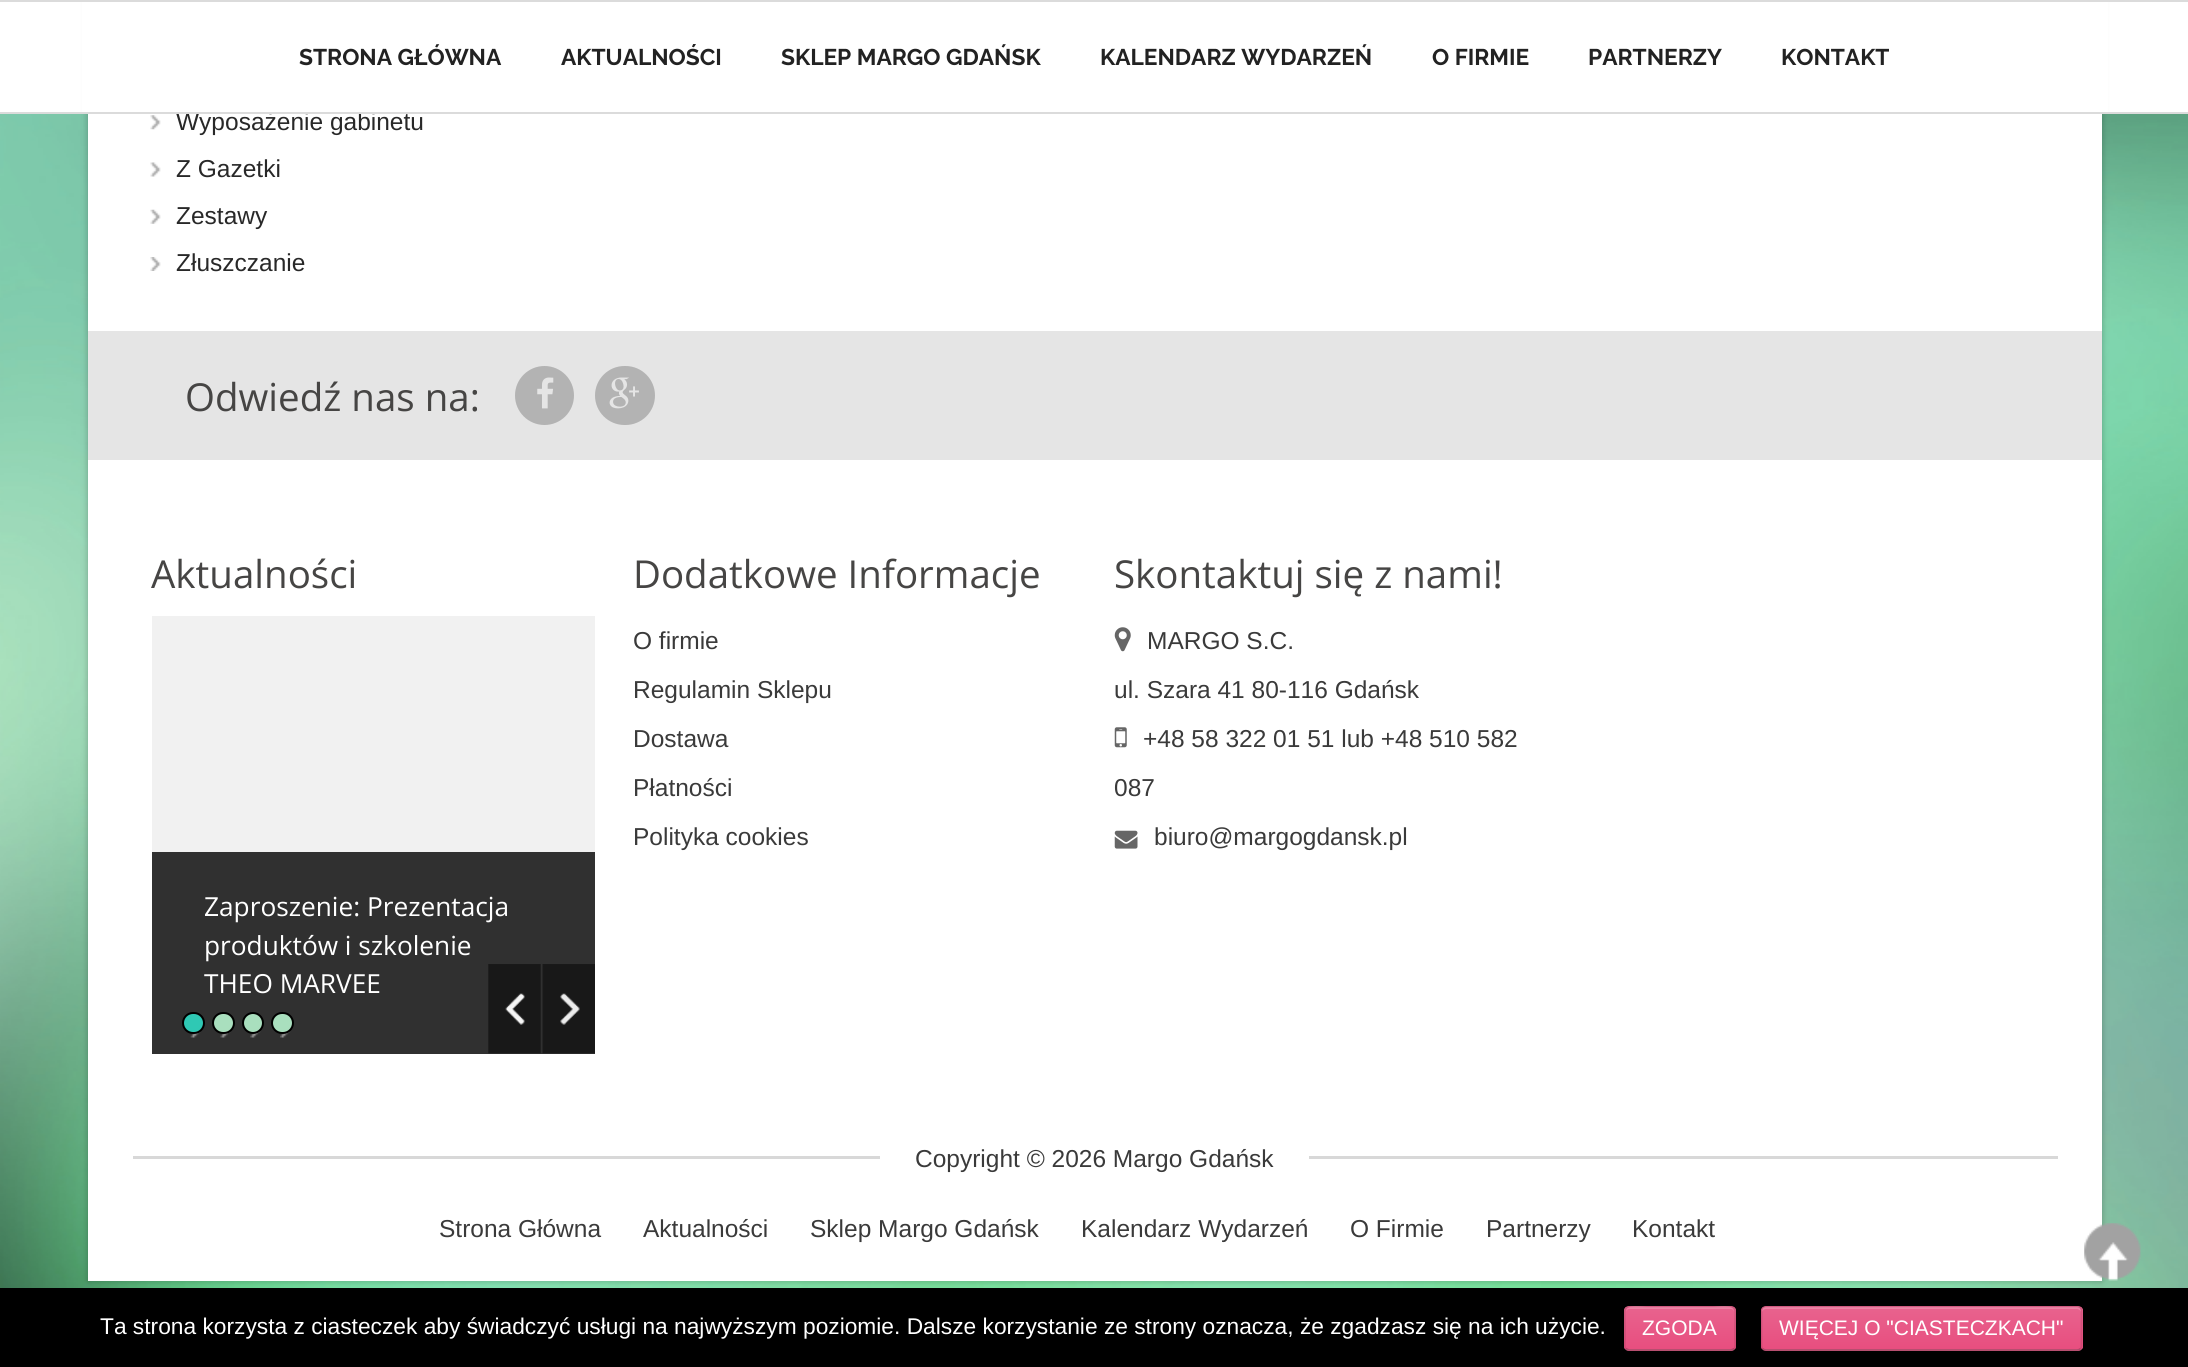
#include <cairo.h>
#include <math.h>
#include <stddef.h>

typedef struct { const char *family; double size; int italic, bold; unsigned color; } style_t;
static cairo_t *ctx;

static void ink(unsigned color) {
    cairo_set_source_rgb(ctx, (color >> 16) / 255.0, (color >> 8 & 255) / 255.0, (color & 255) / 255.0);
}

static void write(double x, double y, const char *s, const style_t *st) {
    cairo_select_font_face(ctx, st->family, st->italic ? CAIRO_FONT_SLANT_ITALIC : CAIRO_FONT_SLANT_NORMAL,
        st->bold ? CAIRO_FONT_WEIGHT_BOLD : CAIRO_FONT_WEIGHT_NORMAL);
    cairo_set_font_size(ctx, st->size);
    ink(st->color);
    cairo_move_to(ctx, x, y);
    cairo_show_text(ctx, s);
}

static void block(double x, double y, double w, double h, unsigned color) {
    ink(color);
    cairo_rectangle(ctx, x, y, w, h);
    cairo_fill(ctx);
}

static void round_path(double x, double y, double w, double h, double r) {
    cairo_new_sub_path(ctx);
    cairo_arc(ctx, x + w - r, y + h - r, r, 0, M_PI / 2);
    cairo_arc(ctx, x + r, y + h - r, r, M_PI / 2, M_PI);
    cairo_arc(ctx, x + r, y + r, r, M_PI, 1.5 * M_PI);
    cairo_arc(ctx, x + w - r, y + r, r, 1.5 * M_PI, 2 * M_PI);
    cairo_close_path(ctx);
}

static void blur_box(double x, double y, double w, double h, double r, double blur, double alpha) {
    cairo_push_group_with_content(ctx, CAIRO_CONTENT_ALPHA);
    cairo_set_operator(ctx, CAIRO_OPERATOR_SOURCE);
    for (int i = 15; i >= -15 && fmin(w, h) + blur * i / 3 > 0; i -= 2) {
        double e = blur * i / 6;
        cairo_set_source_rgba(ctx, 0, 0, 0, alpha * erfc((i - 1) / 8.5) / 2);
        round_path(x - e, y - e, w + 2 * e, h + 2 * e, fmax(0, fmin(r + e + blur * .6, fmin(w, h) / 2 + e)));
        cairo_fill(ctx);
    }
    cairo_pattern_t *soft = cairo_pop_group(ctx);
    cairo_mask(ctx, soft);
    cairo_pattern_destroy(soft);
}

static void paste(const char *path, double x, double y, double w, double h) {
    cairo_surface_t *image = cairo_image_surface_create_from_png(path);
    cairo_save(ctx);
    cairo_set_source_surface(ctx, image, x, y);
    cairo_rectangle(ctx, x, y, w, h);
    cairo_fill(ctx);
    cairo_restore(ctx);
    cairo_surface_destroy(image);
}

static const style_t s1 = {"Liberation Sans", 24.5, 0, 0, 0x282828};
static const style_t s2 = {"Raleway", 22.75, 0, 1, 0x222222};
static const style_t s3 = {"Open Sans", 38.5, 0, 0, 0x464544};
static const style_t s4 = {"Open Sans", 26.25, 0, 0, 0xffffff};
static const style_t s5 = {"Liberation Sans", 24.5, 0, 0, 0x3a3a3a};
static const style_t s6 = {"Liberation Sans", 22.75, 0, 0, 0xffffff};
static const style_t s7 = {"Liberation Sans", 21, 0, 0, 0xffffff};

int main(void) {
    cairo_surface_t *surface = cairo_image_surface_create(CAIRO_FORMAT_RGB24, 2188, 1367);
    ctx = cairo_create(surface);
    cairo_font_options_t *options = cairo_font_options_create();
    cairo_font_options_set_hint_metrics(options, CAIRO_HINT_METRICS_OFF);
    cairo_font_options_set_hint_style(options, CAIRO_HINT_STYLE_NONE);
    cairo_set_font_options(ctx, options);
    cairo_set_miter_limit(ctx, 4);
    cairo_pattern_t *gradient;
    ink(0xffffff);
    cairo_paint(ctx);
    paste("pic1.png", 0, 114, 2188, 1174);
    ink(0x000000);
    blur_box(88, -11, 2014, 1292, 0, 3.5, 0.25);
    block(88, 114, 2014, 1167, 0xffffff);
    block(82, 2, 2026, 110, 0xffffff);
    block(0, 0, 2188, 2, 0xdbdbdb);
    write(176, 130, "Wyposażenie gabinetu", &s1);
    block(0, 112, 2188, 2, 0xdbdbdb);
    write(299, 65, "STRONA GŁÓWNA", &s2);
    write(561, 65, "AKTUALNOŚCI", &s2);
    write(781, 65, "SKLEP MARGO GDAŃSK", &s2);
    write(1100, 65, "KALENDARZ WYDARZEŃ", &s2);
    write(1432, 65, "O FIRMIE", &s2);
    write(1588, 65, "PARTNERZY", &s2);
    write(1781, 65, "KONTAKT", &s2);
    paste("pic2.png", 150, 115, 11, 15);
    paste("pic3.png", 150, 162, 11, 15);
    write(176, 177, "Z Gazetki", &s1);
    paste("pic4.png", 150, 209, 11, 15);
    write(176, 224, "Zestawy", &s1);
    paste("pic5.png", 150, 257, 11, 14);
    write(176, 271, "Złuszczanie", &s1);
    block(88, 331, 2014, 129, 0xe5e5e5);
    write(185, 411, "Odwiedź nas na:", &s3);
    ink(0xb3b3b3);
    cairo_new_path(ctx);
    cairo_arc(ctx, 544.5, 395.5, 29.5, 0, 2 * M_PI);
    cairo_fill(ctx);
    paste("pic6.png", 537, 377, 17, 32);
    round_path(595, 366, 60, 59, 29.5);
    cairo_fill(ctx);
    paste("pic7.png", 609, 377, 30, 32);
    write(151, 588, "Aktualności", &s3);
    block(152, 616, 443, 236, 0xf1f1f1);
    block(152, 852, 443, 202, 0x303030);
    write(204, 916, "Zaproszenie: Prezentacja", &s4);
    write(204, 955, "produktów i szkolenie", &s4);
    write(204, 993, "THEO MARVEE", &s4);
    paste("pic8.png", 190, 1031, 11, 7);
    ink(0x2fc8b4);
    round_path(183, 1013, 21, 20, 10);
    cairo_fill_preserve(ctx);
    ink(0x000000);
    cairo_stroke(ctx);
    paste("pic9.png", 220, 1031, 11, 7);
    ink(0xa9dfbe);
    round_path(213, 1013, 21, 20, 10);
    cairo_fill_preserve(ctx);
    ink(0x000000);
    cairo_stroke(ctx);
    paste("pic10.png", 250, 1030, 11, 8);
    ink(0xa9dfbe);
    cairo_arc(ctx, 253, 1023, 10, 0, 2 * M_PI);
    cairo_fill_preserve(ctx);
    ink(0x000000);
    cairo_stroke(ctx);
    paste("pic11.png", 280, 1030, 11, 8);
    ink(0xa9dfbe);
    round_path(272, 1013, 21, 20, 10);
    cairo_fill_preserve(ctx);
    ink(0x000000);
    cairo_stroke(ctx);
    paste("pic12.png", 488, 964, 53, 90);
    paste("pic13.png", 542, 964, 53, 90);
    write(633, 588, "Dodatkowe Informacje", &s3);
    write(633, 649, "O firmie", &s5);
    write(633, 698, "Regulamin Sklepu", &s5);
    write(633, 747, "Dostawa", &s5);
    write(633, 796, "Płatności", &s5);
    write(633, 845, "Polityka cookies", &s5);
    write(1114, 588, "Skontaktuj się z nami!", &s3);
    paste("pic14.png", 1114, 627, 17, 25);
    write(1147, 649, "MARGO S.C.", &s5);
    write(1114, 698, "ul. Szara 41 80-116 Gdańsk", &s5);
    paste("pic15.png", 1114, 727, 13, 21);
    write(1143, 747, "+48 58 322 01 51 lub +48 510 582", &s5);
    write(1114, 796, "087", &s5);
    paste("pic16.png", 1114, 830, 24, 19);
    write(1154, 845, "biuro@margogdansk.pl", &s5);
    block(133, 1156, 1925, 3, 0xd8d8d8);
    block(880, 1156, 429, 3, 0xffffff);
    write(915, 1167, "Copyright © 2026 Margo Gdańsk", &s5);
    write(439, 1237, "Strona Główna", &s5);
    write(643, 1237, "Aktualności", &s5);
    write(810, 1237, "Sklep Margo Gdańsk", &s5);
    write(1081, 1237, "Kalendarz Wydarzeń", &s5);
    write(1350, 1237, "O Firmie", &s5);
    write(1486, 1237, "Partnerzy", &s5);
    write(1632, 1237, "Kontakt", &s5);
    paste("pic17.png", 2084, 1223, 57, 58);
    block(0, 1288, 2188, 79, 0x000000);
    write(100, 1334, "Ta strona korzysta z ciasteczek aby świadczyć usługi na najwyższym poziomie. Dalsze korzystanie ze strony oznacza, że zgadzasz się na ich użycie.", &s6);
    ink(0xe8638e);
    round_path(1624, 1306, 112, 45, 5);
    cairo_fill(ctx);
    cairo_save(ctx);
    round_path(1624, 1306, 112, 45, 5);
    cairo_clip(ctx);
    gradient = cairo_pattern_create_linear(1680, 1307, 1680, 1349);
    cairo_pattern_add_color_stop_rgba(gradient, 0, 0.91, 0.388, 0.557, 1);
    cairo_pattern_add_color_stop_rgba(gradient, 1, 0.91, 0.306, 0.498, 1);
    cairo_set_source(ctx, gradient);
    cairo_pattern_destroy(gradient);
    cairo_rectangle(ctx, 1624, 1307, 112, 42);
    cairo_fill(ctx);
    cairo_restore(ctx);
    ink(0xed82a4);
    cairo_new_path(ctx);
    cairo_move_to(ctx, 1629, 1309);
    cairo_line_to(ctx, 1731, 1309);
    cairo_curve_to(ctx, 1733, 1309, 1734, 1311, 1734, 1312);
    cairo_curve_to(ctx, 1734, 1303, 1717, 1307, 1713, 1307);
    cairo_line_to(ctx, 1647, 1307);
    cairo_curve_to(ctx, 1643, 1307, 1626, 1303, 1626, 1312);
    cairo_curve_to(ctx, 1626, 1311, 1627, 1309, 1629, 1309);
    cairo_close_path(ctx);
    cairo_fill(ctx);
    cairo_new_path(ctx);
    cairo_move_to(ctx, 1734, 1349);
    cairo_line_to(ctx, 1731, 1350);
    cairo_line_to(ctx, 1629, 1350);
    cairo_line_to(ctx, 1626, 1349);
    cairo_set_source_rgba(ctx, 0, 0, 0, 0.25);
    cairo_set_line_width(ctx, 1.8);
    cairo_stroke(ctx);
    cairo_new_path(ctx);
    cairo_move_to(ctx, 1626, 1349);
    cairo_curve_to(ctx, 1624, 1346.5, 1625, 1342.5, 1625, 1340);
    cairo_line_to(ctx, 1625, 1328);
    cairo_curve_to(ctx, 1625, 1303, 1620.5, 1306.5, 1646, 1306.5);
    cairo_line_to(ctx, 1714, 1306.5);
    cairo_curve_to(ctx, 1739.5, 1306.5, 1735, 1303, 1735, 1328);
    cairo_line_to(ctx, 1735, 1340);
    cairo_curve_to(ctx, 1735, 1342.5, 1736, 1346.5, 1734, 1349);
    cairo_set_source_rgba(ctx, 0, 0, 0, 0.1);
    cairo_stroke(ctx);
    write(1642, 1335, "ZGODA", &s7);
    ink(0xe8638e);
    round_path(1761, 1306, 322, 45, 5);
    cairo_fill(ctx);
    cairo_save(ctx);
    round_path(1761, 1306, 322, 45, 5);
    cairo_clip(ctx);
    gradient = cairo_pattern_create_linear(1922, 1307, 1922, 1349);
    cairo_pattern_add_color_stop_rgba(gradient, 0, 0.91, 0.388, 0.557, 1);
    cairo_pattern_add_color_stop_rgba(gradient, 1, 0.91, 0.306, 0.498, 1);
    cairo_set_source(ctx, gradient);
    cairo_pattern_destroy(gradient);
    cairo_rectangle(ctx, 1761, 1307, 322, 42);
    cairo_fill(ctx);
    cairo_restore(ctx);
    ink(0xed82a4);
    cairo_new_path(ctx);
    cairo_move_to(ctx, 1766, 1309);
    cairo_line_to(ctx, 2077, 1309);
    cairo_curve_to(ctx, 2079, 1309, 2081, 1311, 2081, 1312);
    cairo_line_to(ctx, 2081, 1311);
    cairo_curve_to(ctx, 2081, 1309, 2079, 1307, 2077, 1307);
    cairo_line_to(ctx, 1766, 1307);
    cairo_curve_to(ctx, 1764, 1307, 1762, 1309, 1762, 1311);
    cairo_line_to(ctx, 1762, 1312);
    cairo_curve_to(ctx, 1762, 1311, 1764, 1309, 1766, 1309);
    cairo_close_path(ctx);
    cairo_fill(ctx);
    cairo_new_path(ctx);
    cairo_move_to(ctx, 2080.5, 1349);
    cairo_curve_to(ctx, 2079.5, 1349.5, 2078.5, 1350, 2077, 1350);
    cairo_line_to(ctx, 1766, 1350);
    cairo_curve_to(ctx, 1764.5, 1350, 1763.5, 1349.5, 1762.5, 1349);
    cairo_set_source_rgba(ctx, 0, 0, 0, 0.25);
    cairo_stroke(ctx);
    cairo_new_path(ctx);
    cairo_move_to(ctx, 1762.5, 1349);
    cairo_curve_to(ctx, 1762, 1348, 1761.5, 1347, 1761.5, 1346);
    cairo_line_to(ctx, 1761.5, 1311);
    cairo_curve_to(ctx, 1761.5, 1309.5, 1762, 1308.5, 1762.5, 1307.5);
    cairo_curve_to(ctx, 1763.5, 1307, 1764.5, 1306.5, 1766, 1306.5);
    cairo_line_to(ctx, 2077, 1306.5);
    cairo_curve_to(ctx, 2078.5, 1306.5, 2079.5, 1307, 2080.5, 1307.5);
    cairo_curve_to(ctx, 2081, 1308.5, 2081.5, 1309.5, 2081.5, 1311);
    cairo_line_to(ctx, 2081.5, 1346);
    cairo_curve_to(ctx, 2081.5, 1347, 2081, 1348, 2080.5, 1349);
    cairo_set_source_rgba(ctx, 0, 0, 0, 0.1);
    cairo_stroke(ctx);
    write(1779, 1335, "WIĘCEJ O \"CIASTECZKACH\"", &s7);
    cairo_surface_write_to_png(surface, "screenshot.png");
    cairo_font_options_destroy(options);
    cairo_destroy(ctx);
    cairo_surface_destroy(surface);
    return 0;
}
